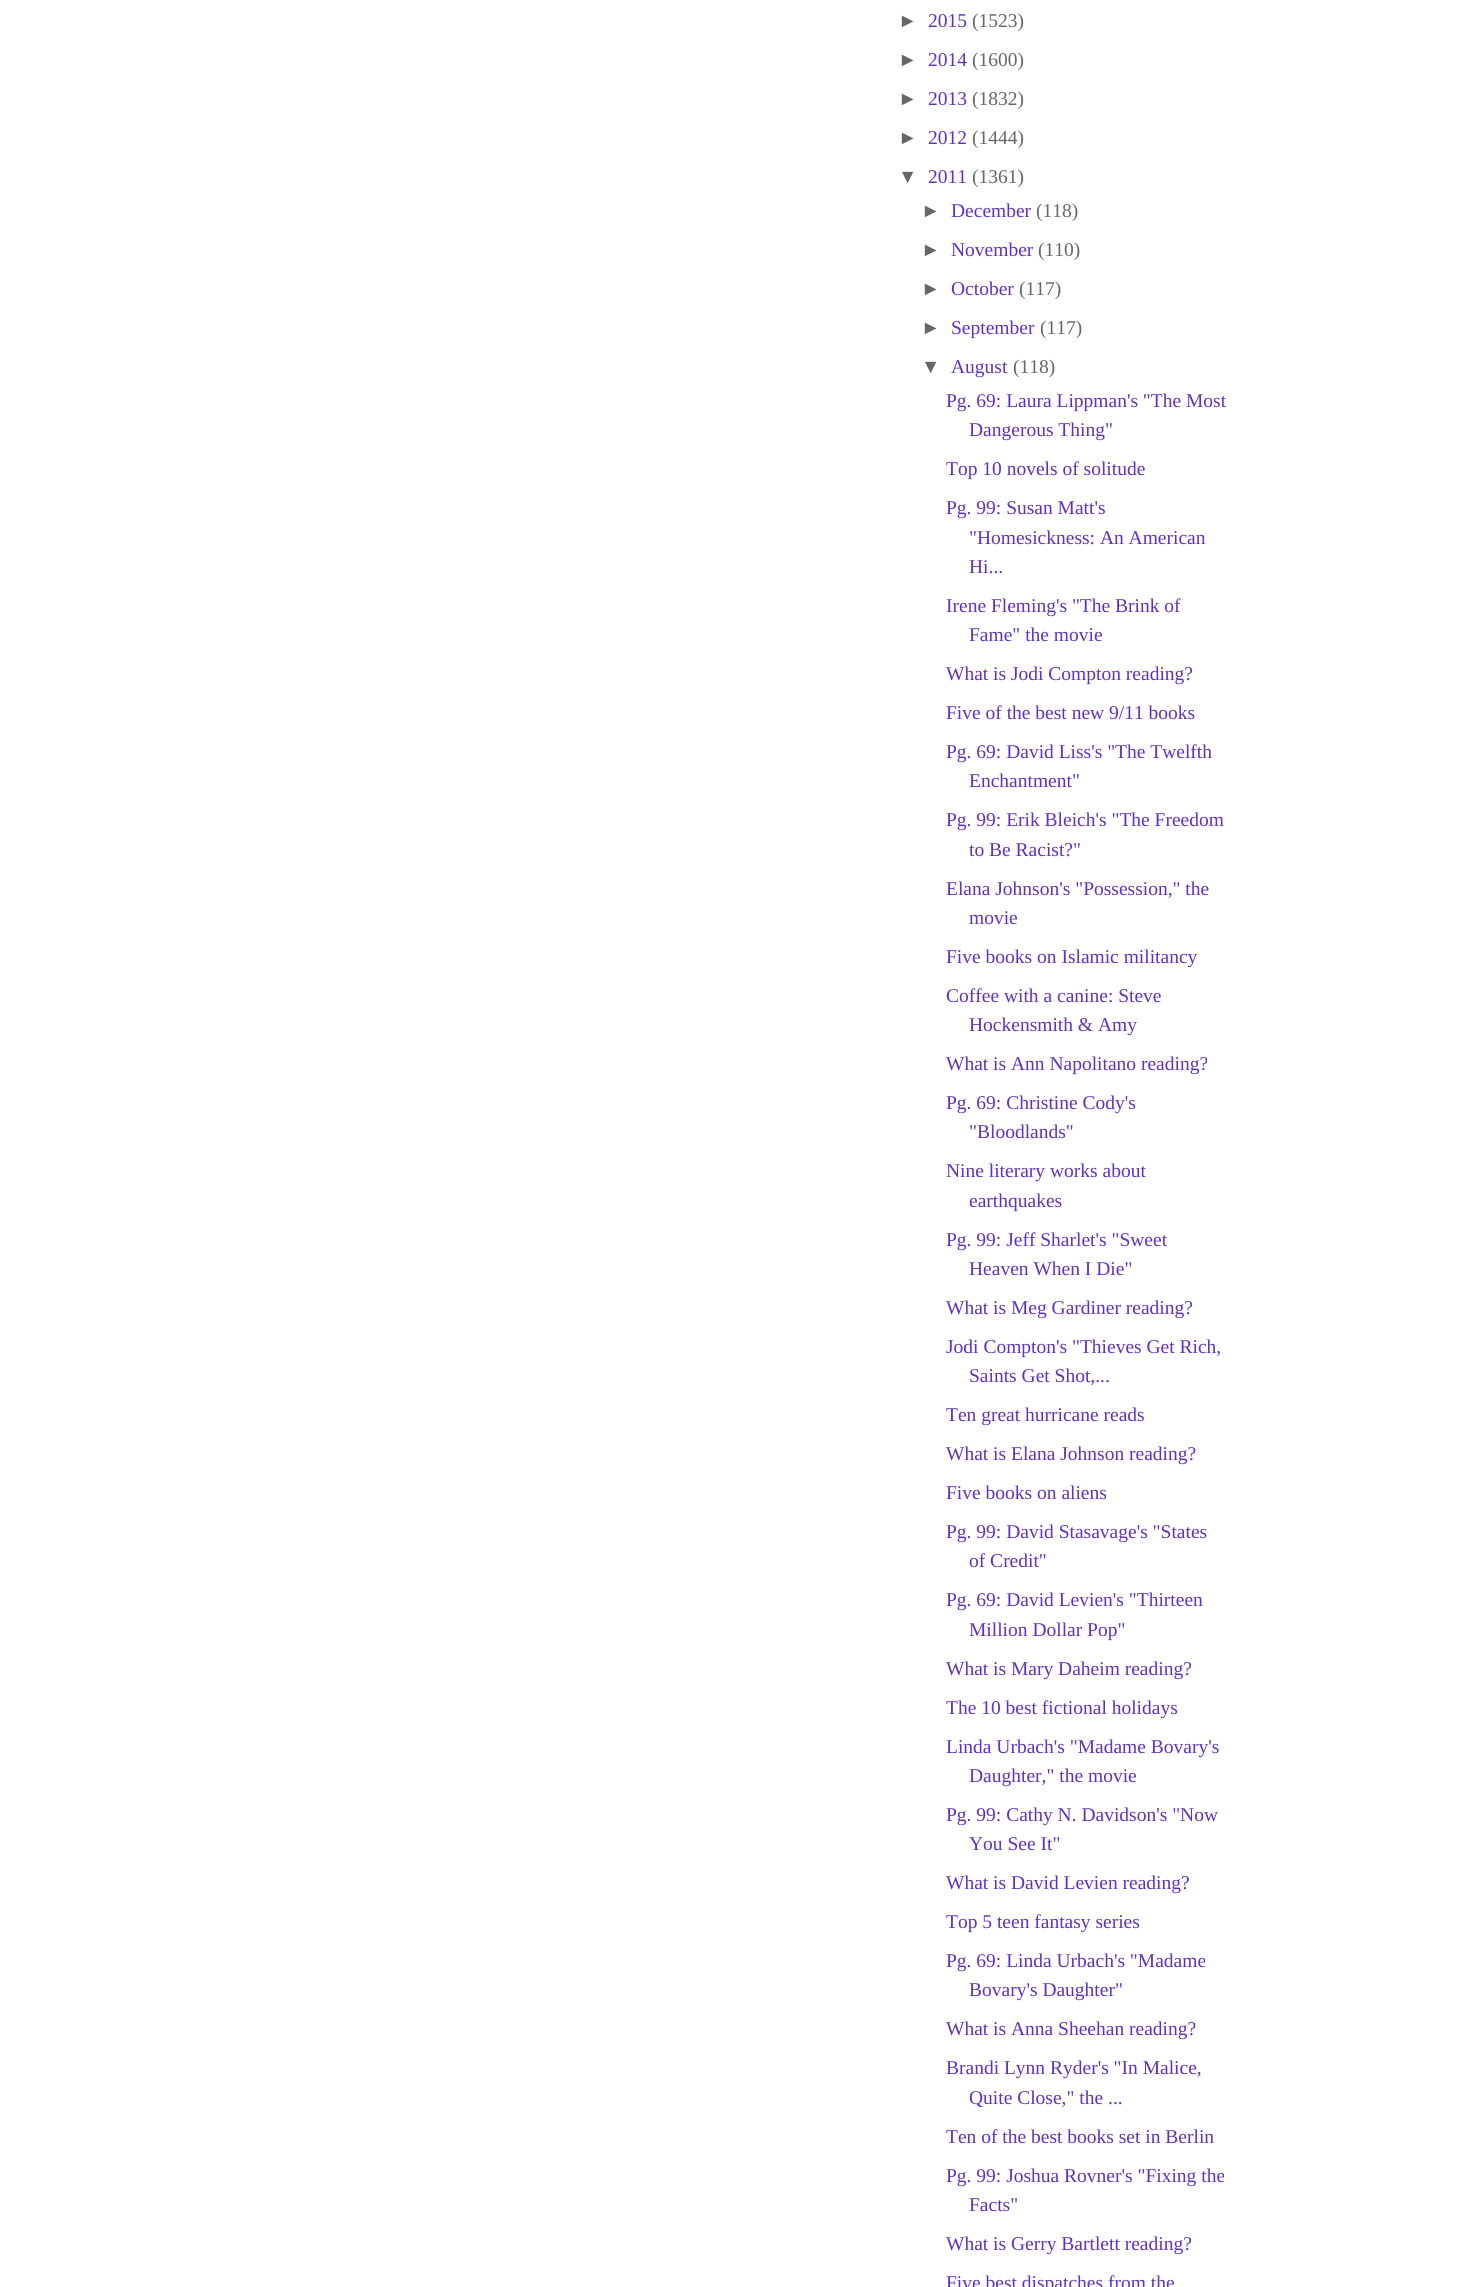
#include <cairo.h>
#include <math.h>
#include <stddef.h>

typedef struct { const char *family; double size; int italic, bold; unsigned color; } style_t;
static cairo_t *ctx;

static void ink(unsigned color) {
    cairo_set_source_rgb(ctx, (color >> 16) / 255.0, (color >> 8 & 255) / 255.0, (color & 255) / 255.0);
}

static void write(double x, double y, const char *s, const style_t *st) {
    cairo_select_font_face(ctx, st->family, st->italic ? CAIRO_FONT_SLANT_ITALIC : CAIRO_FONT_SLANT_NORMAL,
        st->bold ? CAIRO_FONT_WEIGHT_BOLD : CAIRO_FONT_WEIGHT_NORMAL);
    cairo_set_font_size(ctx, st->size);
    ink(st->color);
    cairo_move_to(ctx, x, y);
    cairo_show_text(ctx, s);
}

static const style_t s1 = {"Liberation Sans", 19.5, 0, 0, 0x666666};
static const style_t s2 = {"Liberation Serif", 19.5, 0, 0, 0x6131bd};
static const style_t s3 = {"Liberation Serif", 19.5, 0, 0, 0x666666};

int main(void) {
    cairo_surface_t *surface = cairo_image_surface_create(CAIRO_FORMAT_RGB24, 1465, 2287);
    ctx = cairo_create(surface);
    cairo_font_options_t *options = cairo_font_options_create();
    cairo_font_options_set_hint_metrics(options, CAIRO_HINT_METRICS_OFF);
    cairo_font_options_set_hint_style(options, CAIRO_HINT_STYLE_NONE);
    cairo_set_font_options(ctx, options);
    cairo_set_miter_limit(ctx, 4);
    ink(0xffffff);
    cairo_paint(ctx);
    write(898, 27, "►", &s1);
    write(928, 27, "2015", &s2);
    write(972, 27, "(1523)", &s3);
    write(898, 66, "►", &s1);
    write(928, 66, "2014", &s2);
    write(972, 66, "(1600)", &s3);
    write(898, 105, "►", &s1);
    write(928, 105, "2013", &s2);
    write(972, 105, "(1832)", &s3);
    write(898, 144, "►", &s1);
    write(928, 144, "2012", &s2);
    write(972, 144, "(1444)", &s3);
    write(898, 183, "▼", &s1);
    write(928, 183, "2011", &s2);
    write(972, 183, "(1361)", &s3);
    write(921, 217, "►", &s1);
    write(951, 217, "December", &s2);
    write(1036, 217, "(118)", &s3);
    write(921, 256, "►", &s1);
    write(951, 256, "November", &s2);
    write(1038, 256, "(110)", &s3);
    write(921, 295, "►", &s1);
    write(951, 295, "October", &s2);
    write(1019, 295, "(117)", &s3);
    write(921, 334, "►", &s1);
    write(951, 334, "September", &s2);
    write(1040, 334, "(117)", &s3);
    write(921, 373, "▼", &s1);
    write(951, 373, "August", &s2);
    write(1013, 373, "(118)", &s3);
    write(946, 407, "Pg. 69: Laura Lippman's \"The Most", &s2);
    write(969, 436, "Dangerous Thing\"", &s2);
    write(946, 475, "Top 10 novels of solitude", &s2);
    write(946, 514, "Pg. 99: Susan Matt's", &s2);
    write(969, 544, "\"Homesickness: An American", &s2);
    write(969, 573, "Hi...", &s2);
    write(946, 612, "Irene Fleming's \"The Brink of", &s2);
    write(969, 641, "Fame\" the movie", &s2);
    write(946, 680, "What is Jodi Compton reading?", &s2);
    write(946, 719, "Five of the best new 9/11 books", &s2);
    write(946, 758, "Pg. 69: David Liss's \"The Twelfth", &s2);
    write(969, 787, "Enchantment\"", &s2);
    write(946, 826, "Pg. 99: Erik Bleich's \"The Freedom", &s2);
    write(969, 856, "to Be Racist?\"", &s2);
    write(946, 895, "Elana Johnson's \"Possession,\" the", &s2);
    write(969, 924, "movie", &s2);
    write(946, 963, "Five books on Islamic militancy", &s2);
    write(946, 1002, "Coffee with a canine: Steve", &s2);
    write(969, 1031, "Hockensmith & Amy", &s2);
    write(946, 1070, "What is Ann Napolitano reading?", &s2);
    write(946, 1109, "Pg. 69: Christine Cody's", &s2);
    write(969, 1138, "\"Bloodlands\"", &s2);
    write(946, 1177, "Nine literary works about", &s2);
    write(969, 1207, "earthquakes", &s2);
    write(946, 1246, "Pg. 99: Jeff Sharlet's \"Sweet", &s2);
    write(969, 1275, "Heaven When I Die\"", &s2);
    write(946, 1314, "What is Meg Gardiner reading?", &s2);
    write(946, 1353, "Jodi Compton's \"Thieves Get Rich,", &s2);
    write(969, 1382, "Saints Get Shot,...", &s2);
    write(946, 1421, "Ten great hurricane reads", &s2);
    write(946, 1460, "What is Elana Johnson reading?", &s2);
    write(946, 1499, "Five books on aliens", &s2);
    write(946, 1538, "Pg. 99: David Stasavage's \"States", &s2);
    write(969, 1567, "of Credit\"", &s2);
    write(946, 1606, "Pg. 69: David Levien's \"Thirteen", &s2);
    write(969, 1636, "Million Dollar Pop\"", &s2);
    write(946, 1675, "What is Mary Daheim reading?", &s2);
    write(946, 1714, "The 10 best fictional holidays", &s2);
    write(946, 1753, "Linda Urbach's \"Madame Bovary's", &s2);
    write(969, 1782, "Daughter,\" the movie", &s2);
    write(946, 1821, "Pg. 99: Cathy N. Davidson's \"Now", &s2);
    write(969, 1850, "You See It\"", &s2);
    write(946, 1889, "What is David Levien reading?", &s2);
    write(946, 1928, "Top 5 teen fantasy series", &s2);
    write(946, 1967, "Pg. 69: Linda Urbach's \"Madame", &s2);
    write(969, 1996, "Bovary's Daughter\"", &s2);
    write(946, 2035, "What is Anna Sheehan reading?", &s2);
    write(946, 2074, "Brandi Lynn Ryder's \"In Malice,", &s2);
    write(969, 2104, "Quite Close,\" the ...", &s2);
    write(946, 2143, "Ten of the best books set in Berlin", &s2);
    write(946, 2182, "Pg. 99: Joshua Rovner's \"Fixing the", &s2);
    write(969, 2211, "Facts\"", &s2);
    write(946, 2250, "What is Gerry Bartlett reading?", &s2);
    write(946, 2289, "Five best dispatches from the", &s2);
    cairo_surface_write_to_png(surface, "screenshot.png");
    cairo_font_options_destroy(options);
    cairo_destroy(ctx);
    cairo_surface_destroy(surface);
    return 0;
}
